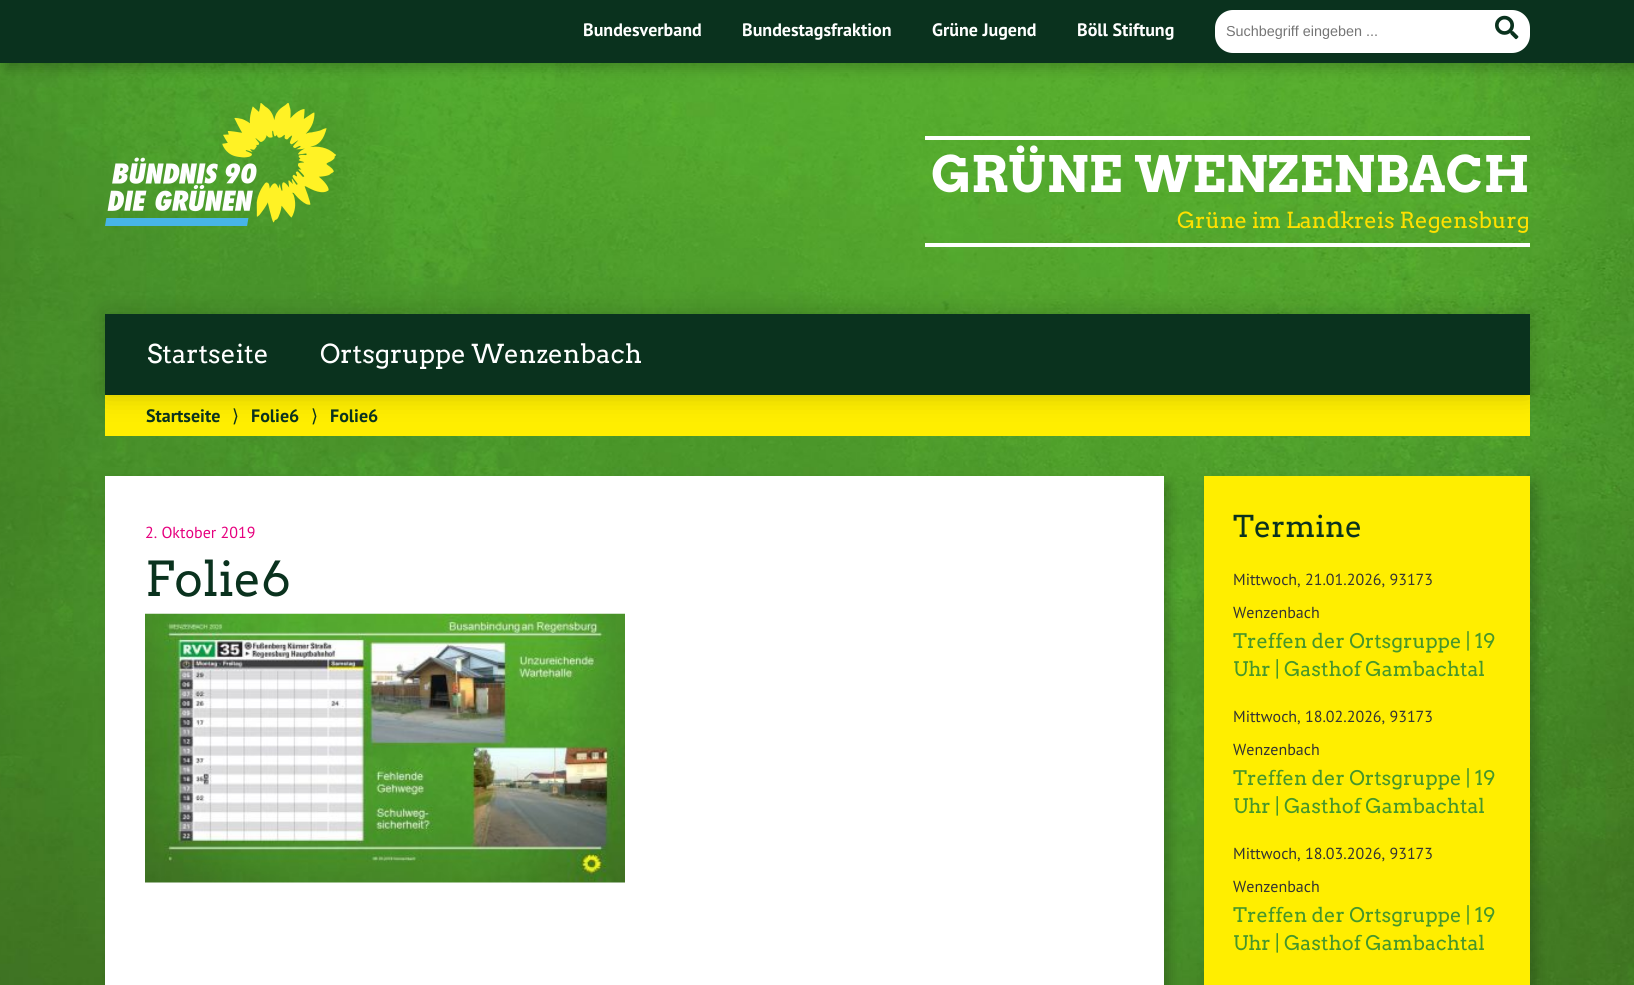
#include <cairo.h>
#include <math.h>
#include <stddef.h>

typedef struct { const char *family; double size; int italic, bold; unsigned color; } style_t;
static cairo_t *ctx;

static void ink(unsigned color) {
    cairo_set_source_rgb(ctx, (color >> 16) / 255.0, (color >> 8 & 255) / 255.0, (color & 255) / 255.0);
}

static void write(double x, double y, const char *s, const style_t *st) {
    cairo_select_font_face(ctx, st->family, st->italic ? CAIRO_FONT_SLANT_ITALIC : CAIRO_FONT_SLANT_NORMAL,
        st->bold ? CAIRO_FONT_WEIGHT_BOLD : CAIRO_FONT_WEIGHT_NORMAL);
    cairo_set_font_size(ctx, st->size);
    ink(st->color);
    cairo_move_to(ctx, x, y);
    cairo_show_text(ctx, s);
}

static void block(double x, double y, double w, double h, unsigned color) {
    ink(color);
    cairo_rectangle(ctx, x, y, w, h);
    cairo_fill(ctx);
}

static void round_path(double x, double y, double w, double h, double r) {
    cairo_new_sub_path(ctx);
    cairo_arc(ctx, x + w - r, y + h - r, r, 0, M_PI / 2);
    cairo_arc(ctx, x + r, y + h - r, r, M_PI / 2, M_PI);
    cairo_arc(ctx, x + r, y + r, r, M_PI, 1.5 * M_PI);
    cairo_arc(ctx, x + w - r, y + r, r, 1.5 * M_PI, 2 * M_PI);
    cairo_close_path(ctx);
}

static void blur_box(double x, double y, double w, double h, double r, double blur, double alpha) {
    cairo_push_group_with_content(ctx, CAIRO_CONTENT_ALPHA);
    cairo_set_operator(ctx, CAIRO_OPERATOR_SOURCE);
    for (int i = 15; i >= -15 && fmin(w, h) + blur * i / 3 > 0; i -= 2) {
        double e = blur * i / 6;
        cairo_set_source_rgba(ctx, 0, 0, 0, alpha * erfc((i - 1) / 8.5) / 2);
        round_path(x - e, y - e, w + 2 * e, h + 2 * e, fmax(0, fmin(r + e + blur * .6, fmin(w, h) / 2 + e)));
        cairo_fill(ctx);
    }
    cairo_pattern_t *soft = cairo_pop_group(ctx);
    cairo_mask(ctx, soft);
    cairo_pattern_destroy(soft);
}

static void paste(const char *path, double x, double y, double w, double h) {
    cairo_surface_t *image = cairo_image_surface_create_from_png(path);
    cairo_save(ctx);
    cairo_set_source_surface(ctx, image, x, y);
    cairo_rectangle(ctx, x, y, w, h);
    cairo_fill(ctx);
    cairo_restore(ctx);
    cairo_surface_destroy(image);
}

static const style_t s1 = {"PT Sans", 18, 0, 1, 0xffffff};
static const style_t s2 = {"Liberation Sans", 14.4, 0, 0, 0x757575};
static const style_t s3 = {"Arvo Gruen", 50, 0, 0, 0xffffff};
static const style_t s4 = {"Arvo", 22, 0, 0, 0xffe000};
static const style_t s5 = {"Arvo", 26, 0, 0, 0xffffff};
static const style_t s6 = {"PT Sans", 18, 0, 1, 0x0a321e};
static const style_t s7 = {"DejaVu Sans", 18, 0, 0, 0x0a321e};
static const style_t s8 = {"PT Sans", 16, 0, 0, 0xe6007e};
static const style_t s9 = {"Arvo", 48, 0, 0, 0x0a321e};
static const style_t s10 = {"Arvo", 30, 0, 0, 0x0a321e};
static const style_t s11 = {"PT Sans", 16, 0, 0, 0x333333};
static const style_t s12 = {"Arvo", 20, 0, 0, 0x46962b};

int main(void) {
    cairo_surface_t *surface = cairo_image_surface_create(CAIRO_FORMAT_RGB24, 1634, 985);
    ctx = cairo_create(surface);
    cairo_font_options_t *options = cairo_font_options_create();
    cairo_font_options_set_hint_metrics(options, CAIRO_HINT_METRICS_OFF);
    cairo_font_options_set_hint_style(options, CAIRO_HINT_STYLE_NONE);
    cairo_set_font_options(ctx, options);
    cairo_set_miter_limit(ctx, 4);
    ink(0xffffff);
    cairo_paint(ctx);
    paste("pic1.png", 0, 63, 1634, 922);
    ink(0x000000);
    blur_box(6, 6, 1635, 63, 0, 6, 0.2);
    block(0, 0, 1634, 63, 0x0a321e);
    write(583, 36, "Bundesverband", &s1);
    write(742, 36, "Bundestagsfraktion", &s1);
    write(932, 36, "Grüne Jugend", &s1);
    write(1077, 36, "Böll Stiftung", &s1);
    round_path(1215, 10, 315, 43, 18);
    cairo_fill(ctx);
    write(1226, 36, "Suchbegriff eingeben ...", &s2);
    paste("pic2.png", 1495, 15, 24, 25);
    paste("pic3.png", 105, 103, 231, 123);
    block(925, 136, 605, 4, 0xffffff);
    block(925, 243, 605, 4, 0xffffff);
    write(931, 192, "GRÜNE WENZENBACH", &s3);
    write(1177, 228, "Grüne im Landkreis Regensburg", &s4);
    block(105, 395, 1425, 41, 0xffee00);
    ink(0x000000);
    blur_box(105, 314, 1425, 81, 0, 12.5, 0.2);
    block(105, 314, 1425, 81, 0x0a321e);
    write(147, 363, "Startseite", &s5);
    write(320, 363, "Ortsgruppe Wenzenbach", &s5);
    write(146, 422, "Startseite", &s6);
    write(232, 422, "⟩", &s7);
    write(251, 422, "Folie6", &s6);
    write(311, 422, "⟩", &s7);
    write(330, 422, "Folie6", &s6);
    ink(0x000000);
    blur_box(111, 483, 1059, 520, 0, 6, 0.2);
    block(105, 476, 1059, 509, 0xffffff);
    write(145, 538, "2. Oktober 2019", &s8);
    write(145, 596, "Folie6", &s9);
    paste("pic4.png", 145, 613, 480, 270);
    ink(0x000000);
    blur_box(1210, 483, 326, 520, 0, 6, 0.2);
    block(1204, 476, 326, 509, 0xffee00);
    write(1233, 537, "Termine", &s10);
    write(1233, 585, "Mittwoch, 21.01.2026, 93173", &s11);
    write(1233, 618, "Wenzenbach", &s11);
    write(1233, 648, "Treffen der Ortsgruppe | 19", &s12);
    write(1233, 676, "Uhr | Gasthof Gambachtal", &s12);
    write(1233, 722, "Mittwoch, 18.02.2026, 93173", &s11);
    write(1233, 755, "Wenzenbach", &s11);
    write(1233, 785, "Treffen der Ortsgruppe | 19", &s12);
    write(1233, 813, "Uhr | Gasthof Gambachtal", &s12);
    write(1233, 859, "Mittwoch, 18.03.2026, 93173", &s11);
    write(1233, 892, "Wenzenbach", &s11);
    write(1233, 922, "Treffen der Ortsgruppe | 19", &s12);
    write(1233, 950, "Uhr | Gasthof Gambachtal", &s12);
    cairo_surface_write_to_png(surface, "screenshot.png");
    cairo_font_options_destroy(options);
    cairo_destroy(ctx);
    cairo_surface_destroy(surface);
    return 0;
}
